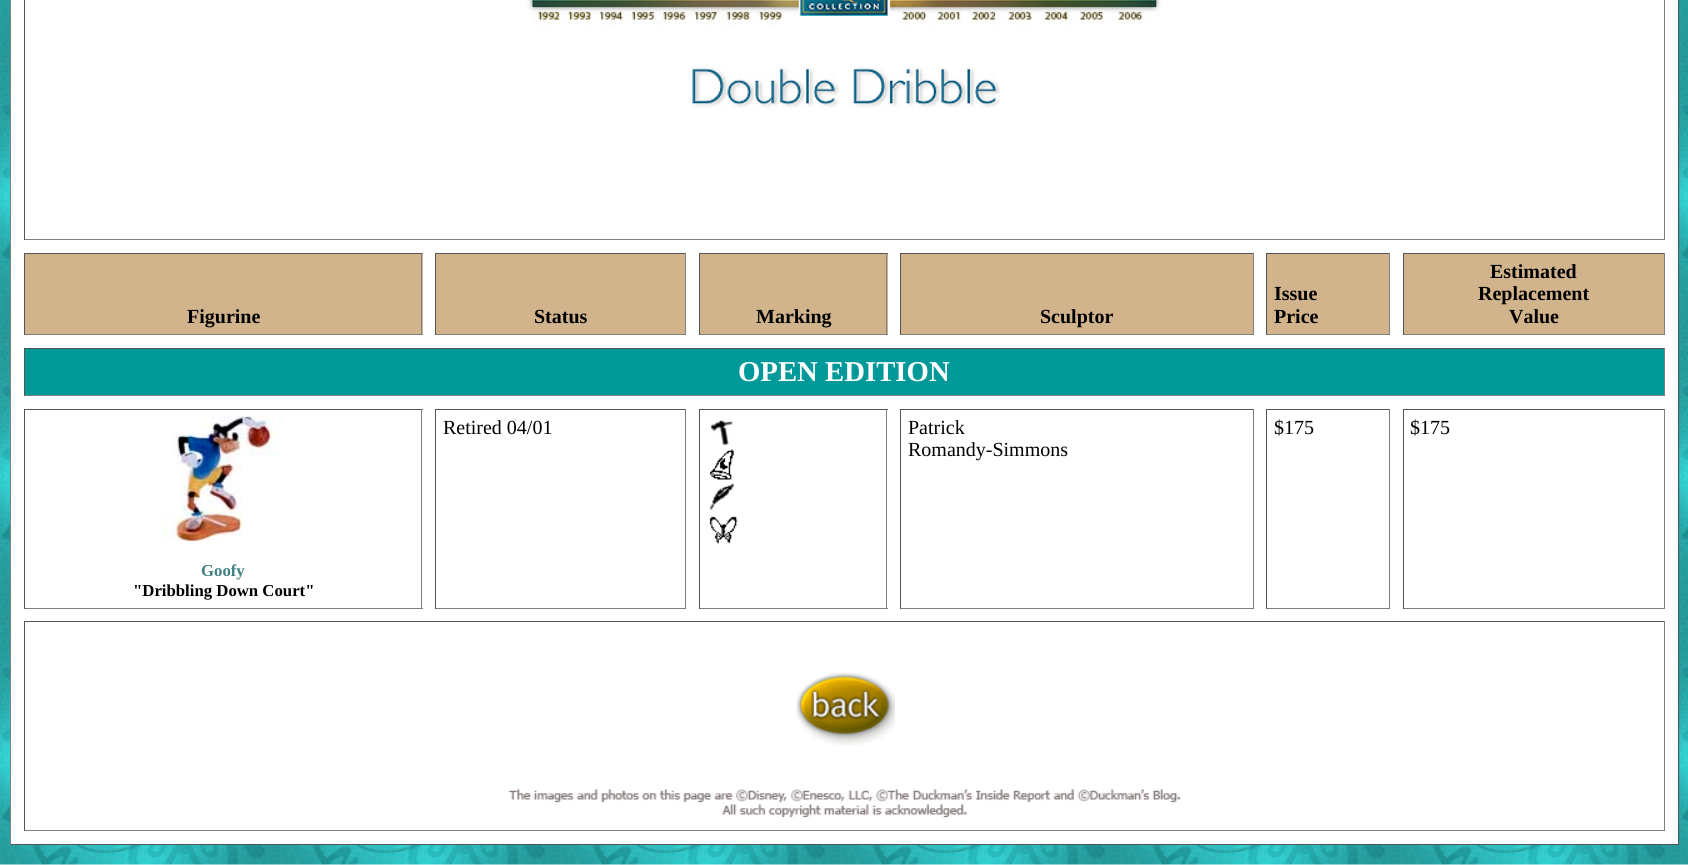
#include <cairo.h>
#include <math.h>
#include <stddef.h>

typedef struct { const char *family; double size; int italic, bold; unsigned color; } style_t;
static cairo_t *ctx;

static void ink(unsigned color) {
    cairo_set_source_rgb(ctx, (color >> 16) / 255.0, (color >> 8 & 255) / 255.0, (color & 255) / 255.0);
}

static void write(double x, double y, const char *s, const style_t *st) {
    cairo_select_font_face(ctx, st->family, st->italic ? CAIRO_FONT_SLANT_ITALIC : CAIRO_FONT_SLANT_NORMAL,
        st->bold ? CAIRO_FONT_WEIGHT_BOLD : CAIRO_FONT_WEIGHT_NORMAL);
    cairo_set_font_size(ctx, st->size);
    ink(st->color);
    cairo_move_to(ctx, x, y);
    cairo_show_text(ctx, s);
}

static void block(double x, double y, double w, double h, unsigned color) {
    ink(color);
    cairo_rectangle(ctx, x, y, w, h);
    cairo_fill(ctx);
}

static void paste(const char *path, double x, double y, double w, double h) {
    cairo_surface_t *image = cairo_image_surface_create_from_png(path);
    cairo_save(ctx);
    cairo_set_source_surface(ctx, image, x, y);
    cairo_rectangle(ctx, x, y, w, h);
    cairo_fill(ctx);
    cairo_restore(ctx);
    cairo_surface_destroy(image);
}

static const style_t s1 = {"Liberation Serif", 20, 0, 1, 0x000000};
static const style_t s2 = {"Liberation Serif", 28.75, 0, 1, 0xffffff};
static const style_t s3 = {"Liberation Serif", 20, 0, 0, 0x000000};
static const style_t s4 = {"Liberation Serif", 16.75, 0, 1, 0x408080};
static const style_t s5 = {"Liberation Serif", 16.75, 0, 1, 0x000000};

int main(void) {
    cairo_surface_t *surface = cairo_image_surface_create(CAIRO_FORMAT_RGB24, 1688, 865);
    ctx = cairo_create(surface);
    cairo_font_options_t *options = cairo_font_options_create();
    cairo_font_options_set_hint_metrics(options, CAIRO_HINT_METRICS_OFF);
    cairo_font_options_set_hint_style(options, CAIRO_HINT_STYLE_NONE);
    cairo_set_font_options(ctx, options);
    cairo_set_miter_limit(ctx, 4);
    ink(0xffffff);
    cairo_paint(ctx);
    paste("pic1.png", 0, 0, 1688, 865);
    block(11, 0, 1667, 844, 0xffffff);
    block(1678, 0, 1, 845, 0x555555);
    block(10, 844, 1669, 1, 0x555555);
    block(10, 0, 1, 845, 0x808080);
    block(1664, 0, 1, 240, 0x808080);
    block(24, 239, 1641, 1, 0x808080);
    block(24, 0, 1, 240, 0x555555);
    paste("pic2.png", 527, 0, 634, 26);
    paste("pic3.png", 690, 66, 311, 43);
    block(25, 254, 398, 80, 0xd2b48c);
    block(24, 253, 399, 1, 0x555555);
    block(421, 253, 1, 82, 0x808080);
    block(24, 334, 399, 1, 0x808080);
    block(24, 253, 1, 82, 0x555555);
    write(187, 323, "Figurine", &s1);
    block(436, 254, 249, 80, 0xd2b48c);
    block(435, 253, 251, 1, 0x555555);
    block(685, 253, 1, 82, 0x808080);
    block(435, 334, 251, 1, 0x808080);
    block(435, 253, 1, 82, 0x555555);
    write(534, 323, "Status", &s1);
    block(700, 254, 188, 80, 0xd2b48c);
    block(699, 253, 189, 1, 0x555555);
    block(886, 253, 1, 82, 0x808080);
    block(699, 334, 189, 1, 0x808080);
    block(699, 253, 1, 82, 0x555555);
    write(756, 323, "Marking", &s1);
    block(901, 254, 352, 80, 0xd2b48c);
    block(900, 253, 354, 1, 0x555555);
    block(1253, 253, 1, 82, 0x808080);
    block(900, 334, 354, 1, 0x808080);
    block(900, 253, 1, 82, 0x555555);
    write(1040, 323, "Sculptor", &s1);
    block(1267, 254, 122, 80, 0xd2b48c);
    block(1266, 253, 124, 1, 0x555555);
    block(1389, 253, 1, 82, 0x808080);
    block(1266, 334, 124, 1, 0x808080);
    block(1266, 253, 1, 82, 0x555555);
    write(1274, 300, "Issue", &s1);
    write(1274, 323, "Price", &s1);
    block(1404, 254, 260, 80, 0xd2b48c);
    block(1403, 253, 262, 1, 0x555555);
    block(1664, 253, 1, 82, 0x808080);
    block(1403, 334, 262, 1, 0x808080);
    block(1403, 253, 1, 82, 0x555555);
    write(1490, 278, "Estimated", &s1);
    write(1478, 300, "Replacement", &s1);
    write(1509, 323, "Value", &s1);
    block(25, 349, 1639, 46, 0x009999);
    block(24, 348, 1641, 1, 0x555555);
    block(1664, 348, 1, 48, 0x808080);
    block(24, 395, 1641, 1, 0x808080);
    block(24, 348, 1, 48, 0x555555);
    write(738, 381, "OPEN EDITION", &s2);
    block(435, 409, 251, 1, 0x555555);
    block(685, 409, 1, 200, 0x808080);
    block(435, 608, 251, 1, 0x808080);
    block(435, 409, 1, 200, 0x555555);
    write(443, 434, "Retired 04/01", &s3);
    block(699, 409, 189, 1, 0x555555);
    block(886, 409, 1, 200, 0x808080);
    block(699, 608, 189, 1, 0x808080);
    block(699, 409, 1, 200, 0x555555);
    paste("pic4.png", 710, 420, 23, 26);
    paste("pic5.png", 709, 449, 25, 31);
    paste("pic6.png", 709, 483, 25, 27);
    paste("pic7.png", 709, 515, 29, 29);
    block(900, 409, 354, 1, 0x555555);
    block(1253, 409, 1, 200, 0x808080);
    block(900, 608, 354, 1, 0x808080);
    block(900, 409, 1, 200, 0x555555);
    write(908, 434, "Patrick", &s3);
    write(908, 456, "Romandy-Simmons", &s3);
    block(1266, 409, 124, 1, 0x555555);
    block(1389, 409, 1, 200, 0x808080);
    block(1266, 608, 124, 1, 0x808080);
    block(1266, 409, 1, 200, 0x555555);
    write(1274, 434, "$175", &s3);
    block(1403, 409, 262, 1, 0x555555);
    block(1664, 409, 1, 200, 0x808080);
    block(1403, 608, 262, 1, 0x808080);
    block(1403, 409, 1, 200, 0x555555);
    write(1410, 434, "$175", &s3);
    block(24, 409, 399, 1, 0x555555);
    block(421, 409, 1, 200, 0x808080);
    block(24, 608, 399, 1, 0x808080);
    block(24, 409, 1, 200, 0x555555);
    paste("pic8.png", 161, 415, 121, 126);
    write(201, 576, "Goofy", &s4);
    write(133, 596, "\"Dribbling Down Court\"", &s5);
    block(24, 621, 1641, 1, 0x555555);
    block(1664, 621, 1, 210, 0x808080);
    block(24, 830, 1641, 1, 0x808080);
    block(24, 621, 1, 210, 0x555555);
    paste("pic9.png", 796, 672, 99, 74);
    paste("pic10.png", 508, 789, 673, 29);
    cairo_surface_write_to_png(surface, "screenshot.png");
    cairo_font_options_destroy(options);
    cairo_destroy(ctx);
    cairo_surface_destroy(surface);
    return 0;
}
